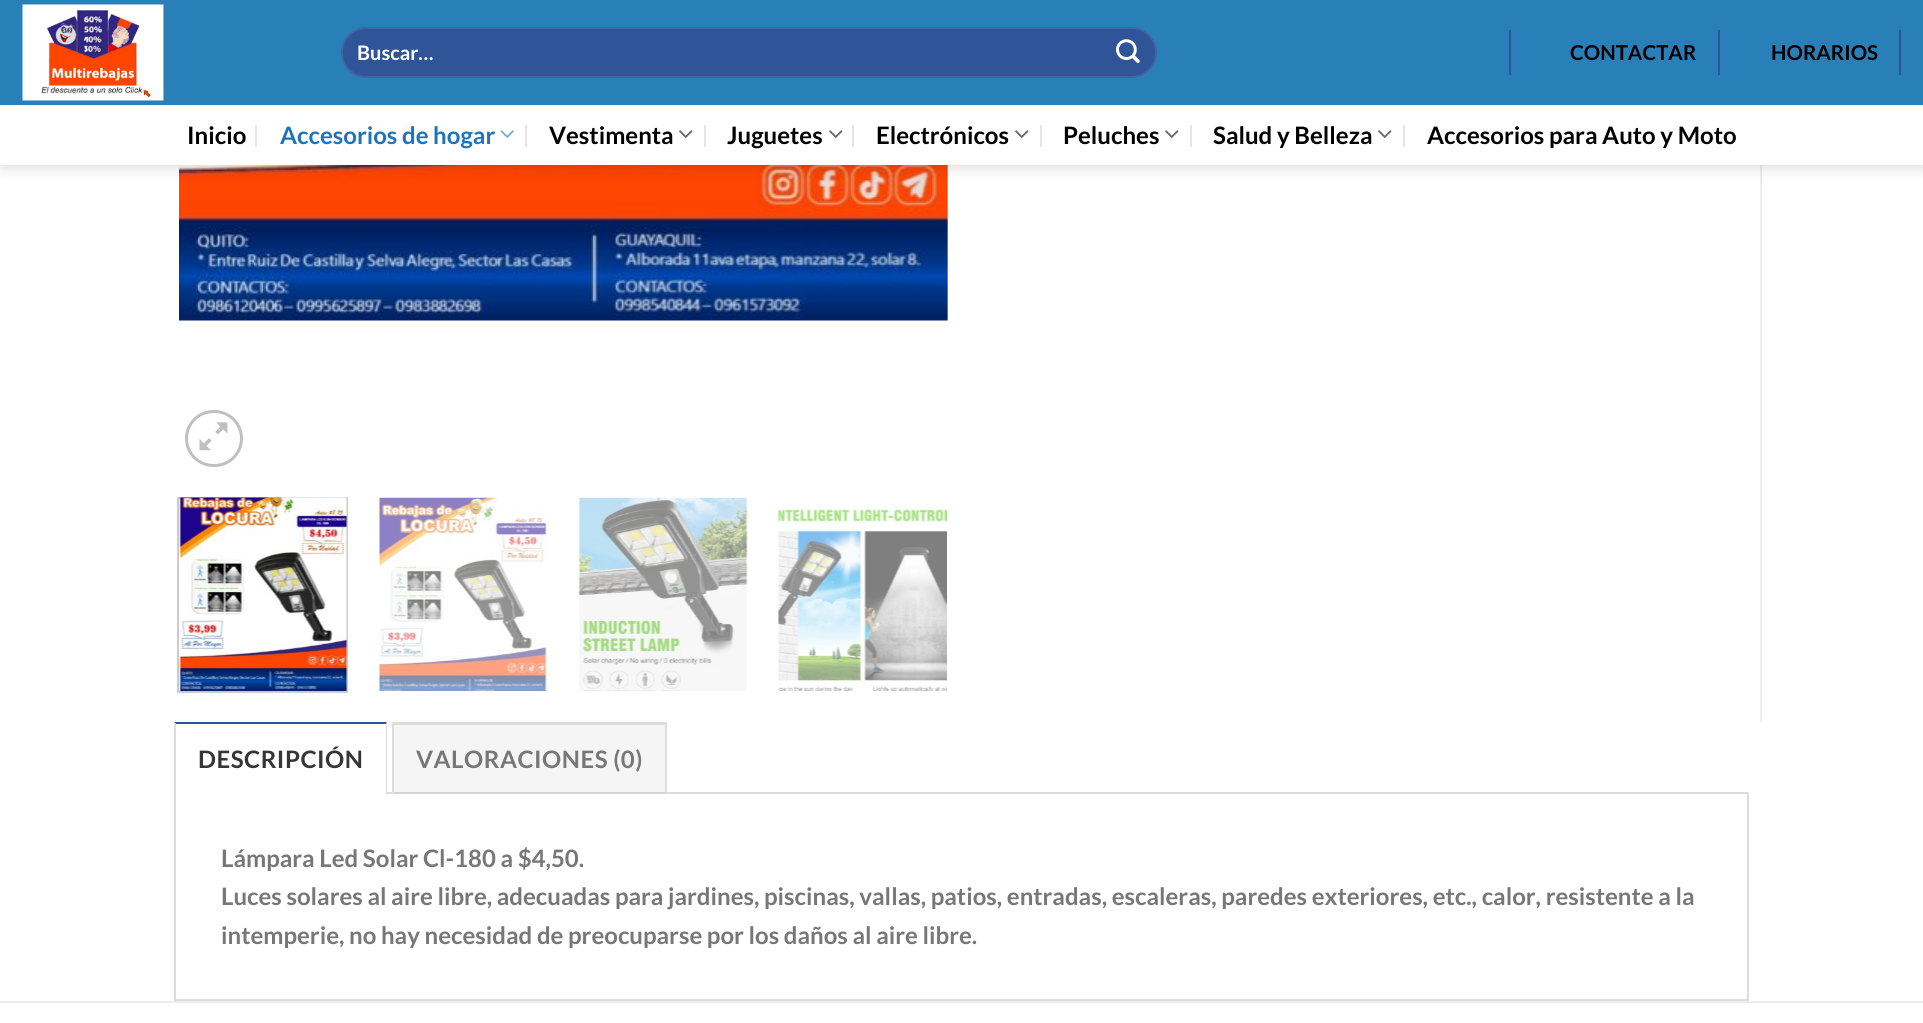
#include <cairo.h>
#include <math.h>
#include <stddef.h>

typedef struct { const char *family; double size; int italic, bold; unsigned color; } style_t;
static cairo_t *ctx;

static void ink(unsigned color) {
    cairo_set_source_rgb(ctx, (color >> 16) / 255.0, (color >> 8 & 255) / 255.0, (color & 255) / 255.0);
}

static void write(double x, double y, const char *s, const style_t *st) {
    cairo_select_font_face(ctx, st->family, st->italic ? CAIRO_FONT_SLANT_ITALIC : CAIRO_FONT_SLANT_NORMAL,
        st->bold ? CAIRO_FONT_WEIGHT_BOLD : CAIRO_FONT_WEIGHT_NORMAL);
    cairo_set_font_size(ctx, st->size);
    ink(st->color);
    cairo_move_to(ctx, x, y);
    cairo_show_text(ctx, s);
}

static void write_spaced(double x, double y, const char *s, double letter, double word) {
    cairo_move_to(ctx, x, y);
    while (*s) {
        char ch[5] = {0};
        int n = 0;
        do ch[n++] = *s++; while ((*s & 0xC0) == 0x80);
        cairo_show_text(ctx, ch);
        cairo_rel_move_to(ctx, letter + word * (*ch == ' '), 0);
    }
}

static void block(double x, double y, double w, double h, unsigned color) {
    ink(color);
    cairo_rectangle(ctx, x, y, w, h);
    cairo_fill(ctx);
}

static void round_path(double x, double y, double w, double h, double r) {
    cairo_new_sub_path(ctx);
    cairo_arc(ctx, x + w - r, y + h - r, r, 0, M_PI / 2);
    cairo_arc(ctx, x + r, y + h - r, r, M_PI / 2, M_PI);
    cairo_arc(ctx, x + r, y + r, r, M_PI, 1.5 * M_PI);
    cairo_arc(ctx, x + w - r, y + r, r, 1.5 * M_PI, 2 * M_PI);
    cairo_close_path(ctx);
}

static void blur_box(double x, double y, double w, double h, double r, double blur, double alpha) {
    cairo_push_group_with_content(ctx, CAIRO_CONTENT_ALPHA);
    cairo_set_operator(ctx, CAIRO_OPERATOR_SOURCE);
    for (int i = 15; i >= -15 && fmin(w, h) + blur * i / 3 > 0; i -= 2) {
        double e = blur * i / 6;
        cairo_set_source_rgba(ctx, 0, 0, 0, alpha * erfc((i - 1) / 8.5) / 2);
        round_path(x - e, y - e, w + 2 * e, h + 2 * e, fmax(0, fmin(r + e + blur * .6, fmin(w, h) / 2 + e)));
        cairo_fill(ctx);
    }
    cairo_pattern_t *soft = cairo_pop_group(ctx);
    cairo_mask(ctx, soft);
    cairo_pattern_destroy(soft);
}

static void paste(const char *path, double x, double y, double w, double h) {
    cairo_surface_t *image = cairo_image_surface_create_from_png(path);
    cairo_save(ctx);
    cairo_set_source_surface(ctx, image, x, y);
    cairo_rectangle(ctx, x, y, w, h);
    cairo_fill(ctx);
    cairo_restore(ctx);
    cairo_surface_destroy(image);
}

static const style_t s1 = {"Lato", 20, 0, 1, 0xffffff};
static const style_t s2 = {"Lato", 20.5, 0, 1, 0x000000};
static const style_t s3 = {"Lato", 24, 0, 1, 0x000000};
static const style_t s4 = {"Lato", 24, 0, 1, 0x1e73be};
static const style_t s5 = {"Lato", 24, 0, 1, 0x777777};

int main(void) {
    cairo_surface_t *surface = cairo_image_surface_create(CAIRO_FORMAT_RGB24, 1923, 1023);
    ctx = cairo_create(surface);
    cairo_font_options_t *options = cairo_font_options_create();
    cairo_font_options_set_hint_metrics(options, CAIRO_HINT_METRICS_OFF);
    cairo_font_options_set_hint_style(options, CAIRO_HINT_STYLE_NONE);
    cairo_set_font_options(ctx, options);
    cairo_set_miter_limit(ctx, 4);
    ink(0xffffff);
    cairo_paint(ctx);
    paste("pic5.png", 179, 165, 769, 156);
    block(1760, 165, 2, 557, 0xececec);
    ink(0x000000);
    blur_box(2, 2, 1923, 165, 0, 7.5, 0.15);
    block(0, 0, 1923, 105, 0x2980b9);
    paste("pic1.png", 22, 4, 142, 97);
    ink(0x2f5498);
    round_path(341, 27, 816, 51, 25.5);
    cairo_fill(ctx);
    round_path(342, 28, 814, 49, 24.5);
    cairo_set_source_rgba(ctx, 1, 1, 1, 0.09);
    cairo_stroke(ctx);
    write(357, 60, "Buscar…", &s1);
    paste("pic2.png", 1116, 39, 24, 24);
    block(1509, 30, 2, 45, 0x2f5498);
    write(1570, 60, "CONTACTAR", &s2);
    block(1718, 30, 2, 45, 0x2f5498);
    write(1771, 60, "HORARIOS", &s2);
    block(1899, 30, 2, 45, 0x2f5498);
    block(0, 105, 1923, 60, 0xffffff);
    write(187, 144, "Inicio", &s3);
    block(255, 125, 2, 22, 0xe6e6e6);
    write(280, 144, "Accesorios de hogar", &s4);
    paste("pic3.png", 500, 130, 14, 8);
    block(525, 125, 2, 22, 0xe6e6e6);
    write(549, 144, "Vestimenta", &s3);
    paste("pic4.png", 679, 130, 14, 8);
    block(704, 125, 2, 22, 0xe6e6e6);
    write(727, 144, "Juguetes", &s3);
    paste("pic4.png", 829, 130, 14, 8);
    block(852, 125, 2, 22, 0xe6e6e6);
    write(876, 144, "Electrónicos", &s3);
    paste("pic4.png", 1015, 130, 14, 8);
    block(1040, 125, 2, 22, 0xe6e6e6);
    write(1063, 144, "Peluches", &s3);
    paste("pic4.png", 1165, 130, 14, 8);
    block(1190, 125, 2, 22, 0xe6e6e6);
    write(1213, 144, "Salud y Belleza", &s3);
    paste("pic4.png", 1378, 130, 14, 8);
    block(1403, 125, 2, 22, 0xe6e6e6);
    write(1427, 144, "Accesorios para Auto y Moto", &s3);
    round_path(186.5, 411.5, 55, 54, 27);
    ink(0xc0c0c0);
    cairo_set_line_width(ctx, 3);
    cairo_stroke(ctx);
    paste("pic6.png", 199, 422, 29, 29);
    cairo_rectangle(ctx, 178, 498, 169, 194);
    ink(0xcccccc);
    cairo_set_line_width(ctx, 2);
    cairo_stroke(ctx);
    paste("pic7.png", 179, 497, 168, 194);
    paste("pic8.png", 379, 497, 168, 194);
    paste("pic9.png", 578, 497, 170, 194);
    paste("pic10.png", 778, 508, 169, 183);
    cairo_rectangle(ctx, 175, 793, 1573, 207);
    ink(0xdddddd);
    cairo_stroke(ctx);
    block(174, 792, 213, 2, 0xffffff);
    ink(0x2f5498);
    cairo_new_path(ctx);
    cairo_move_to(ctx, 174, 722);
    cairo_line_to(ctx, 387, 722);
    cairo_line_to(ctx, 386, 724);
    cairo_line_to(ctx, 176, 724);
    cairo_close_path(ctx);
    cairo_fill(ctx);
    ink(0xdddddd);
    cairo_new_path(ctx);
    cairo_move_to(ctx, 387, 722);
    cairo_line_to(ctx, 387, 794);
    cairo_line_to(ctx, 386, 794);
    cairo_line_to(ctx, 386, 724);
    cairo_close_path(ctx);
    cairo_fill(ctx);
    cairo_new_path(ctx);
    cairo_move_to(ctx, 174, 794);
    cairo_line_to(ctx, 174, 722);
    cairo_line_to(ctx, 176, 724);
    cairo_line_to(ctx, 176, 794);
    cairo_close_path(ctx);
    cairo_fill(ctx);
    ink(0x363636);
    write_spaced(198, 768, "DESCRIPCIÓN", 0.5, 0);
    cairo_set_source_rgba(ctx, 0, 0, 0, 0.04);
    cairo_rectangle(ctx, 394, 725, 271, 69);
    cairo_fill(ctx);
    block(392, 722, 274, 3, 0xdddddd);
    block(665, 722, 2, 72, 0xdddddd);
    block(392, 722, 2, 72, 0xdddddd);
    ink(0x777777);
    write_spaced(416, 768, "VALORACIONES (0)", 0.5, 0);
    write(221, 867, "Lámpara Led Solar Cl-180 a $4,50.", &s5);
    write(221, 905, "Luces solares al aire libre, adecuadas para jardines, piscinas, vallas, patios, entradas, escaleras, paredes exteriores, etc., calor, resistente a la", &s5);
    write(221, 944, "intemperie, no hay necesidad de preocuparse por los daños al aire libre.", &s5);
    block(0, 1001, 1923, 2, 0xececec);
    cairo_surface_write_to_png(surface, "screenshot.png");
    cairo_font_options_destroy(options);
    cairo_destroy(ctx);
    cairo_surface_destroy(surface);
    return 0;
}
